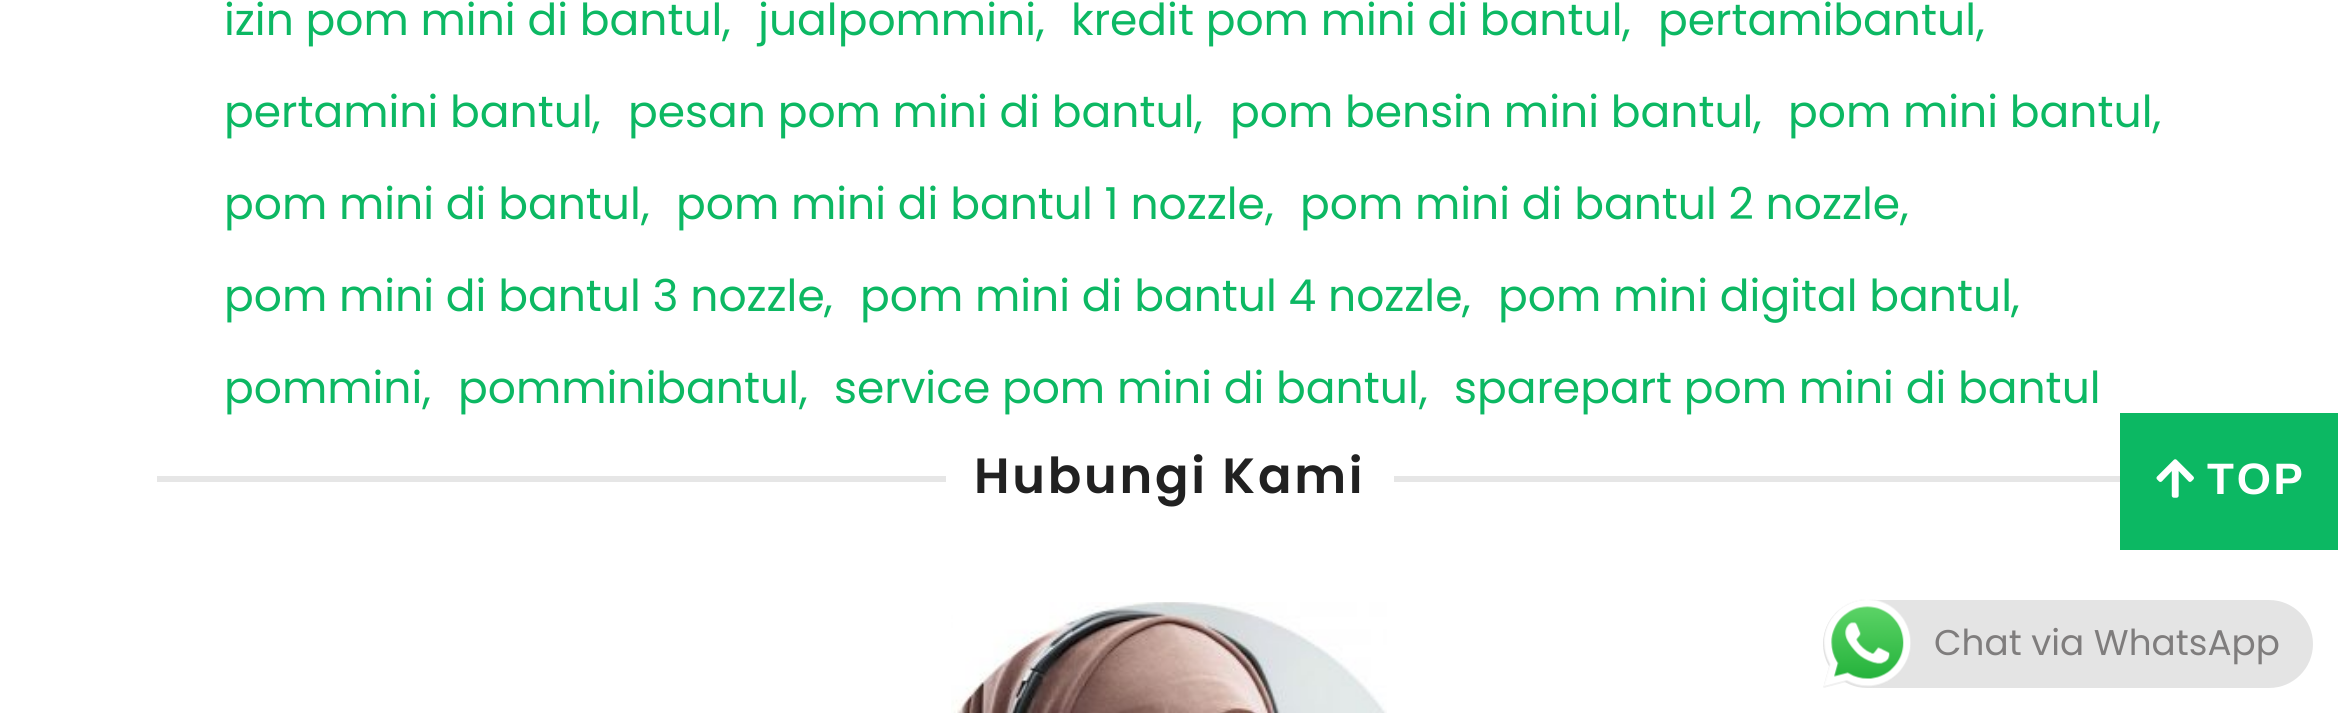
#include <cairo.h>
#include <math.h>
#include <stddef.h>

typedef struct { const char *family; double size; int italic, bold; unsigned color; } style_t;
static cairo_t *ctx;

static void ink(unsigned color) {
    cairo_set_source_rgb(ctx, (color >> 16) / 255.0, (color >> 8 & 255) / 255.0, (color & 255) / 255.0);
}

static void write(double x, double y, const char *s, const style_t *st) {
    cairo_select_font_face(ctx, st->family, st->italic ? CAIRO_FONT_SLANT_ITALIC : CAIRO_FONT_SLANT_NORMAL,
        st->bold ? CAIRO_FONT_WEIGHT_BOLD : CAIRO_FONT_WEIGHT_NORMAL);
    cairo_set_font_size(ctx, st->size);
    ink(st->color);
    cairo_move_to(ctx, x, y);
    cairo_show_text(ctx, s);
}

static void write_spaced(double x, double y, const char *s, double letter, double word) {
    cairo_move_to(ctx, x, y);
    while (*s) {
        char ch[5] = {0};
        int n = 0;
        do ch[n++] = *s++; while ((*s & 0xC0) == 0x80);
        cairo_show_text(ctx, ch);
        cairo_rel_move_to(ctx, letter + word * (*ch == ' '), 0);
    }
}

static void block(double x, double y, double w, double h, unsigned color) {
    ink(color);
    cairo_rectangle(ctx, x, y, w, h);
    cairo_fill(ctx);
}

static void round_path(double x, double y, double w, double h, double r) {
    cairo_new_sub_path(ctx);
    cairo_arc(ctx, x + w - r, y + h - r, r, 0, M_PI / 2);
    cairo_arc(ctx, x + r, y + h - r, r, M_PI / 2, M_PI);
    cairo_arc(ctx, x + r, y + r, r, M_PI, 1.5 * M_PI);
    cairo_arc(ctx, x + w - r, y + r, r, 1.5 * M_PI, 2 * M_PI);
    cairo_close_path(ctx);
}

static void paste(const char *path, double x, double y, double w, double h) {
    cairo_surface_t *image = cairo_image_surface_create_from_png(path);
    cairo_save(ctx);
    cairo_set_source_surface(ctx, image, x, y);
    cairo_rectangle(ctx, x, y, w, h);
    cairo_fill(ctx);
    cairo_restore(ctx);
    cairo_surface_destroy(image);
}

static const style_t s1 = {"Poppins", 44, 0, 0, 0x0cb863};
static const style_t s2 = {"Poppins", 35.75, 0, 0, 0x7f7d7d};

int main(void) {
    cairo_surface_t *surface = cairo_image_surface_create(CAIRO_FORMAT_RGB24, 2338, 713);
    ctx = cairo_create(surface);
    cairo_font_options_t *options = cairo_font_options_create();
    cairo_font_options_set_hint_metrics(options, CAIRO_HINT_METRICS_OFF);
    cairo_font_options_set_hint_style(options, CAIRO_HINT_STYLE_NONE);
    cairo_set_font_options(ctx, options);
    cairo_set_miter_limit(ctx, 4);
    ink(0xffffff);
    cairo_paint(ctx);
    write(224, 35, "izin pom mini di bantul", &s1);
    write(722, 35, ",", &s1);
    write(758, 35, "jualpommini,", &s1);
    write(1071, 35, "kredit pom mini di bantul", &s1);
    write(1622, 35, ",", &s1);
    write(1658, 35, "pertamibantul,", &s1);
    write(224, 127, "pertamini bantul", &s1);
    write(592, 127, ",", &s1);
    write(628, 127, "pesan pom mini di bantul", &s1);
    write(1194, 127, ",", &s1);
    write(1230, 127, "pom bensin mini bantul", &s1);
    write(1753, 127, ",", &s1);
    write(1788, 127, "pom mini bantul,", &s1);
    write(224, 219, "pom mini di bantul", &s1);
    write(641, 219, ",", &s1);
    write(676, 219, "pom mini di bantul 1 nozzle", &s1);
    write(1265, 219, ",", &s1);
    write(1300, 219, "pom mini di bantul 2 nozzle", &s1);
    write(1900, 219, ",", &s1);
    write(224, 311, "pom mini di bantul 3 nozzle", &s1);
    write(824, 311, ",", &s1);
    write(860, 311, "pom mini di bantul 4 nozzle", &s1);
    write(1462, 311, ",", &s1);
    write(1498, 311, "pom mini digital bantul", &s1);
    write(2011, 311, ",", &s1);
    write(224, 403, "pommini,", &s1);
    write(458, 403, "pomminibantul,", &s1);
    write(834, 403, "service pom mini di bantul", &s1);
    write(1419, 403, ",", &s1);
    write(1454, 403, "sparepart pom mini di bantul", &s1);
    block(157, 476, 1963, 6, 0xe6e6e6);
    block(946, 476, 448, 6, 0xffffff);
    cairo_select_font_face(ctx, "Poppins SemiBold", CAIRO_FONT_SLANT_NORMAL, CAIRO_FONT_WEIGHT_NORMAL);
    cairo_set_font_size(ctx, 49.5);
    ink(0x212121);
    write_spaced(974, 493, "Hubungi Kami", 2.75, 0);
    paste("pic1.png", 951, 602, 436, 111);
    block(2120, 413, 218, 137, 0x0cb863);
    paste("pic2.png", 2156, 459, 38, 39);
    cairo_select_font_face(ctx, "Liberation Sans", CAIRO_FONT_SLANT_NORMAL, CAIRO_FONT_WEIGHT_BOLD);
    cairo_set_font_size(ctx, 44);
    ink(0xffffff);
    write_spaced(2207, 494, "TOP", 2.75, 0);
    ink(0xe4e4e4);
    round_path(1823, 600, 490, 88, 44);
    cairo_fill(ctx);
    paste("pic3.png", 1823, 599, 88, 89);
    write(1934, 655, "Chat via WhatsApp", &s2);
    cairo_surface_write_to_png(surface, "screenshot.png");
    cairo_font_options_destroy(options);
    cairo_destroy(ctx);
    cairo_surface_destroy(surface);
    return 0;
}
